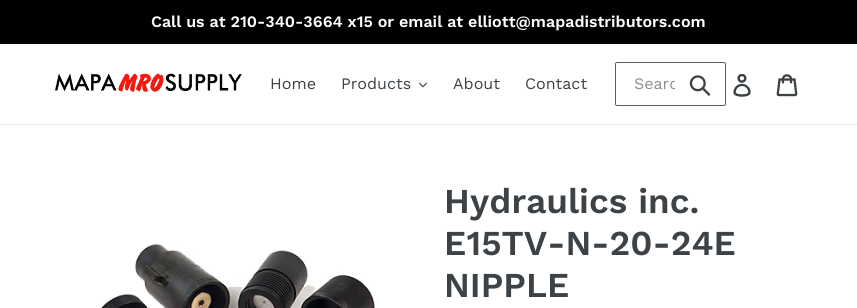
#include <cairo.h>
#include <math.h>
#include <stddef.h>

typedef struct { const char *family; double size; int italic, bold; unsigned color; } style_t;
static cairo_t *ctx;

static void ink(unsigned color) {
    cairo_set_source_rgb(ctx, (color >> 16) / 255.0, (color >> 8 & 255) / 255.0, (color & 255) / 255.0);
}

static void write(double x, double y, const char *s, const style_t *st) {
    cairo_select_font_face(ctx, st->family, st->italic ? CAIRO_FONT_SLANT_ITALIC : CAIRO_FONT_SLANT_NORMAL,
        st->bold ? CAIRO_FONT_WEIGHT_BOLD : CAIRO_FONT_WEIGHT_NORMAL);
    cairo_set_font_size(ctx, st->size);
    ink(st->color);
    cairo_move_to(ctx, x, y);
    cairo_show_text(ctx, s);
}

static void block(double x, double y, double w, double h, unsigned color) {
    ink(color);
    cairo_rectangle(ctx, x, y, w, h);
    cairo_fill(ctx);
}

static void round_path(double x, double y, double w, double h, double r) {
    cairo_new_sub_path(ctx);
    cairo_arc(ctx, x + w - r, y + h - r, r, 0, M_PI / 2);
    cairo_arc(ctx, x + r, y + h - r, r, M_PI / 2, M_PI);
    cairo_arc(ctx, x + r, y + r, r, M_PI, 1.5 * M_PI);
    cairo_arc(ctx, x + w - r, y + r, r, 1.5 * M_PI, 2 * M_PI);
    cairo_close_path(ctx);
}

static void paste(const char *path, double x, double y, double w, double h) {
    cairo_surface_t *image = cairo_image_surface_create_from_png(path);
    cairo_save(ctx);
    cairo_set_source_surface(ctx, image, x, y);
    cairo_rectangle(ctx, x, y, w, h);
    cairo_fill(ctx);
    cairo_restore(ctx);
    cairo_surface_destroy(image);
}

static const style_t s1 = {"Work Sans SemiBold", 16, 0, 0, 0xffffff};
static const style_t s2 = {"Work Sans", 16, 0, 0, 0x3d4246};
static const style_t s3 = {"Work Sans", 16, 0, 0, 0x8b8e90};
static const style_t s4 = {"Work Sans SemiBold", 35, 0, 0, 0x3d4246};

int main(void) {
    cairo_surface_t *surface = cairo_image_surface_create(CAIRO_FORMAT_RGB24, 857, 308);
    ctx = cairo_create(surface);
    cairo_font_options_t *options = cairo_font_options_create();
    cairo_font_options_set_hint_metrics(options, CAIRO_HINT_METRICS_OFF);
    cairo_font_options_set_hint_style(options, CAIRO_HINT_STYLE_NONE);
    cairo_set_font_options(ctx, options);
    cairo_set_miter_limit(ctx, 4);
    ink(0xffffff);
    cairo_paint(ctx);
    block(0, 0, 857, 44, 0x000000);
    write(151, 27, "Call us at 210-340-3664 x15 or email at elliott@mapadistributors.com", &s1);
    block(0, 124, 857, 1, 0xe8e9eb);
    paste("pic1.png", 55, 73, 187, 19);
    write(270, 89, "Home", &s2);
    write(341, 89, "Products", &s2);
    paste("pic2.png", 419, 82, 8, 6);
    write(453, 89, "About", &s2);
    write(525, 89, "Contact", &s2);
    round_path(615.5, 62.5, 110, 43, 1.5);
    ink(0x5a5e62);
    cairo_set_line_width(ctx, 1);
    cairo_stroke(ctx);
    cairo_save(ctx);
    cairo_rectangle(ctx, 634, 74, 41, 19);
    cairo_clip(ctx);
    write(634, 89, "Searc", &s3);
    cairo_restore(ctx);
    paste("pic3.png", 689, 75, 22, 21);
    paste("pic4.png", 733, 74, 18, 23);
    paste("pic5.png", 776, 74, 22, 23);
    paste("pic6.png", 101, 244, 274, 64);
    write(444, 213, "Hydraulics inc.", &s4);
    write(444, 255, "E15TV-N-20-24E", &s4);
    write(444, 297, "NIPPLE", &s4);
    cairo_surface_write_to_png(surface, "screenshot.png");
    cairo_font_options_destroy(options);
    cairo_destroy(ctx);
    cairo_surface_destroy(surface);
    return 0;
}
